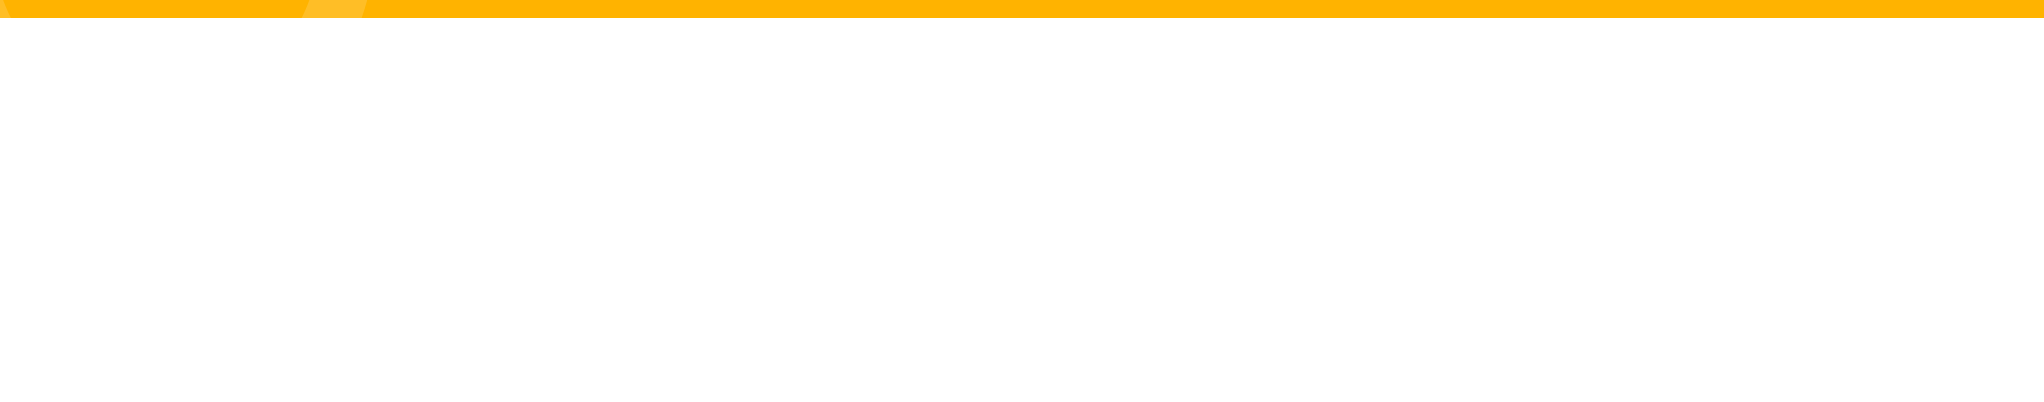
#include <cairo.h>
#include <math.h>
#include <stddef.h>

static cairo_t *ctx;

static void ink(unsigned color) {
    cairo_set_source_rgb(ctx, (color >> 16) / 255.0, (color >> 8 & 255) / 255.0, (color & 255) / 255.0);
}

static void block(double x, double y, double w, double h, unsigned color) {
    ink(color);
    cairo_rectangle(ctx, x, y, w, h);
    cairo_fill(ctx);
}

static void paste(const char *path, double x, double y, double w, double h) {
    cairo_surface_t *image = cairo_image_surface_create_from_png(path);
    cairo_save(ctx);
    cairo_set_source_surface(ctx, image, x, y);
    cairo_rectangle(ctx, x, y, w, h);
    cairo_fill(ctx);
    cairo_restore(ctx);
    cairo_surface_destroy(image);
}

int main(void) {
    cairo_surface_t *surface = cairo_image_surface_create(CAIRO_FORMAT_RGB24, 2044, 402);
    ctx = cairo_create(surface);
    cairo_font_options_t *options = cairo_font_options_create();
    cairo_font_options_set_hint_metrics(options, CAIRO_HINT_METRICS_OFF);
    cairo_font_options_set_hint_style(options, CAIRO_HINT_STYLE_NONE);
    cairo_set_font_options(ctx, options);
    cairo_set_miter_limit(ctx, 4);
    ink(0xffffff);
    cairo_paint(ctx);
    block(0, 0, 2044, 18, 0xffb300);
    paste("pic1.png", 0, 0, 367, 18);
    cairo_surface_write_to_png(surface, "screenshot.png");
    cairo_font_options_destroy(options);
    cairo_destroy(ctx);
    cairo_surface_destroy(surface);
    return 0;
}
